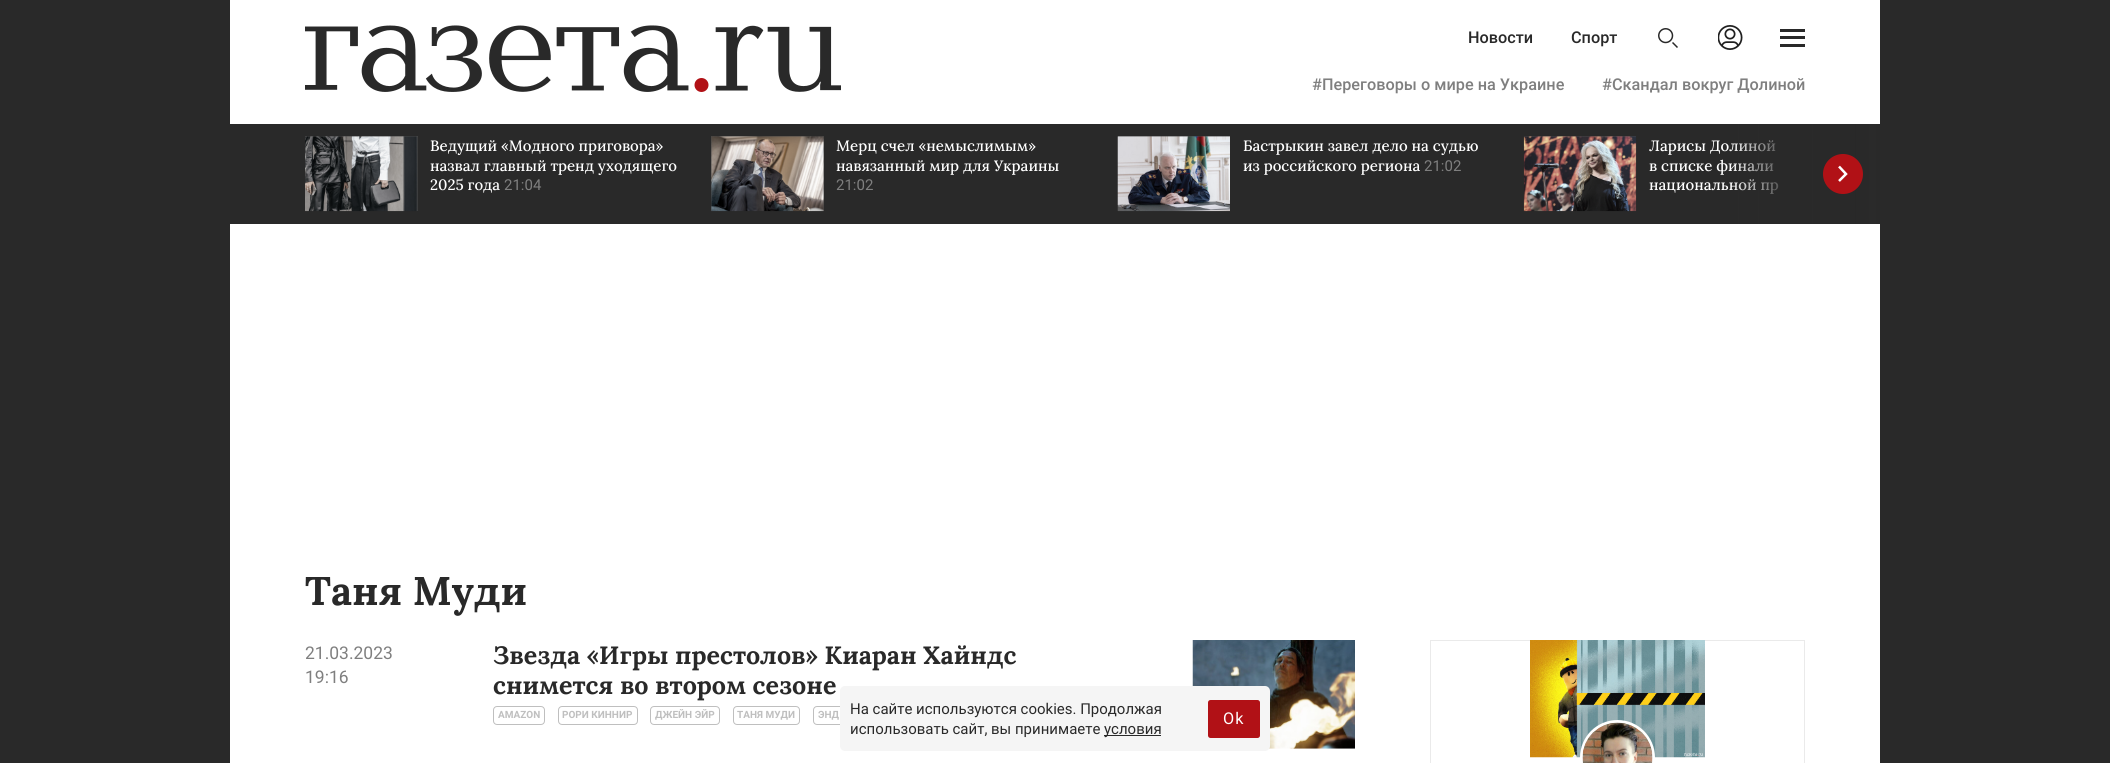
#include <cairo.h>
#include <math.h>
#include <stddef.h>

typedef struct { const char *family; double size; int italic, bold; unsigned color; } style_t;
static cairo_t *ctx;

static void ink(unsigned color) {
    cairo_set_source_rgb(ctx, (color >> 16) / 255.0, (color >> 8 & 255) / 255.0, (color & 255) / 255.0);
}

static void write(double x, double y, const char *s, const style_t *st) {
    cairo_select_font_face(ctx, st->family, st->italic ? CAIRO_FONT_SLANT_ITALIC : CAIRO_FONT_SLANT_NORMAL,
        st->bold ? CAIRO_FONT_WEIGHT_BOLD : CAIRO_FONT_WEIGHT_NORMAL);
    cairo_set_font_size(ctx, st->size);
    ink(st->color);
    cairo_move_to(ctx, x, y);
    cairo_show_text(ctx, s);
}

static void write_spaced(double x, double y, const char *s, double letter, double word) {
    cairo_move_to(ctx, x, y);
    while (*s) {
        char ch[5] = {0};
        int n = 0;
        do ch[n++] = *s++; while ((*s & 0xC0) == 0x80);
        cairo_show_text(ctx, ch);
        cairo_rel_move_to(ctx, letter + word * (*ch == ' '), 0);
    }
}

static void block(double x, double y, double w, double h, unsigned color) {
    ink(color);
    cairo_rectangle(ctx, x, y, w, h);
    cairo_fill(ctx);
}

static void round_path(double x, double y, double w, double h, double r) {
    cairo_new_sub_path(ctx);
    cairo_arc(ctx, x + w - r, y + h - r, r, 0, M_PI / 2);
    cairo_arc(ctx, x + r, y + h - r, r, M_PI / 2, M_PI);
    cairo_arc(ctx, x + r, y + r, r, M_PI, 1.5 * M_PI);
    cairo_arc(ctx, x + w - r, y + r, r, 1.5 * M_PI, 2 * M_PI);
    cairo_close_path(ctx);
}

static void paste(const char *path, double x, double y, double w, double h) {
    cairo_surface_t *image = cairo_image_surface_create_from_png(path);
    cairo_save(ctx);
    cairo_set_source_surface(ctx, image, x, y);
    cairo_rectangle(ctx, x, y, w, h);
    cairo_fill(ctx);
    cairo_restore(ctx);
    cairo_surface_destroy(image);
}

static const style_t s1 = {"Roboto Medium", 16.25, 0, 0, 0x292929};
static const style_t s2 = {"Roboto Medium", 16.25, 0, 0, 0x7f7f7f};
static const style_t s3 = {"Lora Medium", 15, 0, 0, 0xffffff};
static const style_t s4 = {"Roboto", 15, 0, 0, 0x7f7f7f};
static const style_t s5 = {"Lora", 40, 0, 1, 0x292929};
static const style_t s6 = {"Roboto", 17.5, 0, 0, 0x7f7f7f};
static const style_t s7 = {"Lora", 25, 0, 1, 0x292929};
static const style_t s8 = {"Roboto", 10, 0, 1, 0xbfbfbf};
static const style_t s9 = {"Roboto", 15, 0, 0, 0x292929};

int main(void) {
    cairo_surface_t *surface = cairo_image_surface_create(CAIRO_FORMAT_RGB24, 2110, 763);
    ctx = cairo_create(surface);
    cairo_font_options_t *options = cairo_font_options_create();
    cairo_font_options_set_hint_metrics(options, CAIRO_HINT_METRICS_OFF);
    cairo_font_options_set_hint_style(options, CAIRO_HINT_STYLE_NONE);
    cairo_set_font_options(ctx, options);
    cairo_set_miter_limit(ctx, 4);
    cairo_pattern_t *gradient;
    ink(0x292929);
    cairo_paint(ctx);
    block(230, 0, 1650, 763, 0xffffff);
    paste("pic1.png", 305, 25, 536, 67);
    write(1468, 43, "Новости", &s1);
    write(1571, 43, "Спорт", &s1);
    paste("pic2.png", 1658, 28, 20, 20);
    paste("pic3.png", 1718, 25, 25, 25);
    block(1780, 36, 25, 3, 0x292929);
    block(1780, 29, 25, 3, 0x292929);
    block(1780, 44, 25, 3, 0x292929);
    write(1312, 90, "#Переговоры о мире на Украине", &s2);
    write(1602, 90, "#Скандал вокруг Долиной", &s2);
    block(230, 124, 1639, 100, 0x292929);
    block(305, 136, 113, 75, 0x4a4a4a);
    paste("pic4.png", 305, 136, 113, 76);
    write(430, 151, "Ведущий «Модного приговора»", &s3);
    write(430, 171, "назвал главный тренд уходящего", &s3);
    write(430, 190, "2025 года", &s3);
    write(504, 190, "21:04", &s4);
    block(711, 136, 113, 75, 0x4a4a4a);
    paste("pic5.png", 711, 136, 113, 76);
    write(836, 151, "Мерц счел «немыслимым»", &s3);
    write(836, 171, "навязанный мир для Украины", &s3);
    write(836, 190, "21:02", &s4);
    block(1118, 136, 112, 1, 0x4a4a4a);
    paste("pic6.png", 1117, 136, 113, 76);
    write(1243, 151, "Бастрыкин завел дело на судью", &s3);
    write(1243, 171, "из российского региона", &s3);
    write(1424, 171, "21:02", &s4);
    block(1524, 136, 112, 1, 0x4a4a4a);
    paste("pic7.png", 1523, 136, 114, 76);
    write(1649, 151, "Ларисы Долиной", &s3);
    write(1649, 171, "в списке финали", &s3);
    write(1649, 190, "национальной пр", &s3);
    gradient = cairo_pattern_create_linear(1730, 174, 1880, 174);
    cairo_pattern_add_color_stop_rgba(gradient, 0, 0.161, 0.161, 0.161, 0);
    cairo_pattern_add_color_stop_rgba(gradient, 0.4, 0.161, 0.161, 0.161, 0.95);
    cairo_pattern_add_color_stop_rgba(gradient, 1, 0.161, 0.161, 0.161, 1);
    cairo_set_source(ctx, gradient);
    cairo_pattern_destroy(gradient);
    cairo_rectangle(ctx, 1731, 124, 149, 100);
    cairo_fill(ctx);
    ink(0xb11116);
    cairo_arc(ctx, 1843, 174, 20, 0, 2 * M_PI);
    cairo_fill(ctx);
    cairo_new_path(ctx);
    cairo_move_to(ctx, 1839, 166.5);
    cairo_line_to(ctx, 1846, 174);
    cairo_line_to(ctx, 1839, 181);
    ink(0xffffff);
    cairo_set_line_width(ctx, 2.5);
    cairo_stroke(ctx);
    write(305, 605, "Таня Муди", &s5);
    write(305, 659, "21.03.2023", &s6);
    write(305, 683, "19:16", &s6);
    write(493, 664, "Звезда «Игры престолов» Киаран Хайндс", &s7);
    write(493, 694, "снимется во втором сезоне", &s7);
    round_path(493.5, 706.5, 51, 18, 3.5);
    ink(0xbfbfbf);
    cairo_set_line_width(ctx, 1);
    cairo_stroke(ctx);
    write(498, 718, "AMAZON", &s8);
    round_path(558.5, 706.5, 79, 18, 3.5);
    cairo_stroke(ctx);
    write(562, 718, "РОРИ КИННИР", &s8);
    round_path(650.5, 706.5, 69, 18, 3.5);
    cairo_stroke(ctx);
    write(655, 718, "ДЖЕЙН ЭЙР", &s8);
    round_path(733.5, 706.5, 66, 18, 3.5);
    cairo_stroke(ctx);
    write(737, 718, "ТАНЯ МУДИ", &s8);
    round_path(813.5, 706.5, 77, 18, 3.5);
    cairo_stroke(ctx);
    write(818, 718, "ЭНД", &s8);
    paste("pic8.png", 1192, 640, 163, 109);
    cairo_rectangle(ctx, 1430.5, 640.5, 374, 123);
    ink(0xeaeaea);
    cairo_stroke(ctx);
    paste("pic9.png", 1530, 640, 175, 118);
    cairo_arc(ctx, 1617.5, 757.5, 36, 0, 2 * M_PI);
    ink(0xffffff);
    cairo_set_line_width(ctx, 3);
    cairo_stroke(ctx);
    paste("pic10.png", 1582, 722, 71, 41);
    ink(0xf5f5f5);
    round_path(840, 686, 430, 65, 5);
    cairo_fill(ctx);
    write(850, 714, "На сайте используются cookies. Продолжая", &s9);
    write(850, 734, "использовать сайт, вы принимаете", &s9);
    block(1104, 735, 57, 1, 0x292929);
    write(1104, 734, "условия", &s9);
    ink(0xb11116);
    round_path(1208, 700, 52, 38, 2.5);
    cairo_fill(ctx);
    cairo_set_font_size(ctx, 16.25);
    ink(0xffffff);
    write_spaced(1223, 724, "Ok", 1, 0);
    cairo_surface_write_to_png(surface, "screenshot.png");
    cairo_font_options_destroy(options);
    cairo_destroy(ctx);
    cairo_surface_destroy(surface);
    return 0;
}
